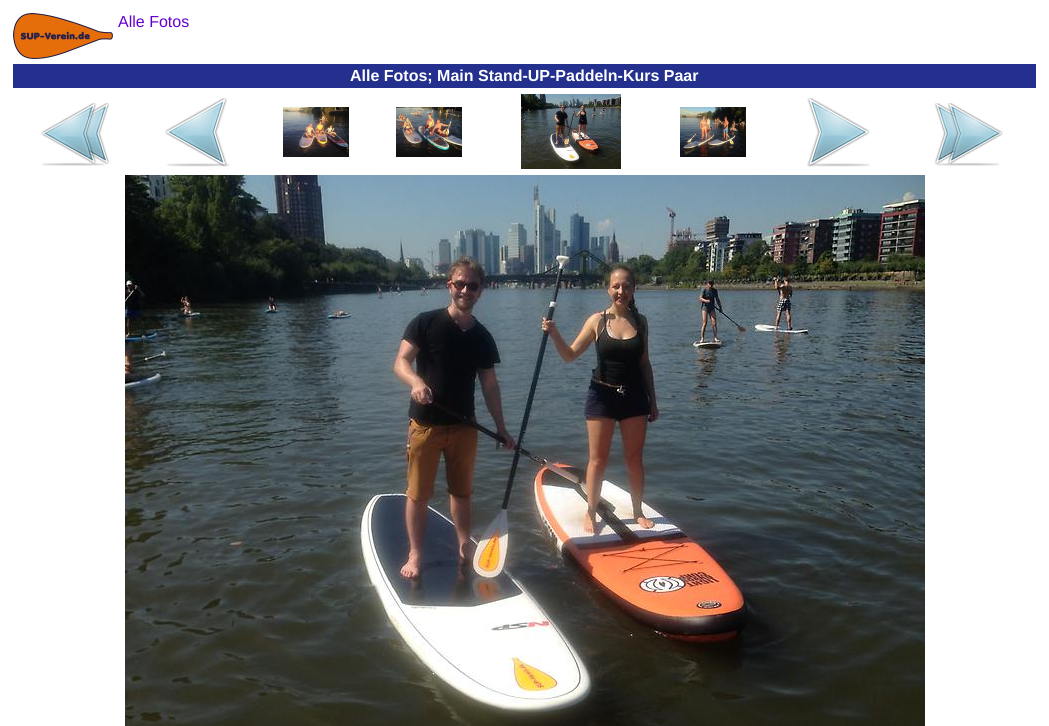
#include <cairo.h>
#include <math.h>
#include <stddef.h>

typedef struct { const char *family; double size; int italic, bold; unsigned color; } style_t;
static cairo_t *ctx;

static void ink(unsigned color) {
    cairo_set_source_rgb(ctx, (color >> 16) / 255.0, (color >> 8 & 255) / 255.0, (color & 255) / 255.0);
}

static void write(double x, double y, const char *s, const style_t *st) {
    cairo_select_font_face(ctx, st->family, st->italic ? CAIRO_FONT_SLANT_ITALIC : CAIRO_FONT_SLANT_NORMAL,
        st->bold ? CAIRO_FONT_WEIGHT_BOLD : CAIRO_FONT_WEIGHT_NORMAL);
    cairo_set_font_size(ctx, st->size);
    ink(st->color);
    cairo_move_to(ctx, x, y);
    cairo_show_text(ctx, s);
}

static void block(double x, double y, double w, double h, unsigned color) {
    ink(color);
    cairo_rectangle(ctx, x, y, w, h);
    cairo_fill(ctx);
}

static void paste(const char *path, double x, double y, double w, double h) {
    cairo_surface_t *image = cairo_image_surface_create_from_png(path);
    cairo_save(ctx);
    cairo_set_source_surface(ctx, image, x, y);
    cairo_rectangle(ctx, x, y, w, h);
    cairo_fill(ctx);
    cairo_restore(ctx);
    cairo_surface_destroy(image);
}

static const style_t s1 = {"Liberation Sans", 16, 0, 0, 0x6600cc};
static const style_t s2 = {"Liberation Sans", 16, 0, 1, 0xffffff};

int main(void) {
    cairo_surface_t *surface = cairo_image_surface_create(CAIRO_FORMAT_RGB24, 1049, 726);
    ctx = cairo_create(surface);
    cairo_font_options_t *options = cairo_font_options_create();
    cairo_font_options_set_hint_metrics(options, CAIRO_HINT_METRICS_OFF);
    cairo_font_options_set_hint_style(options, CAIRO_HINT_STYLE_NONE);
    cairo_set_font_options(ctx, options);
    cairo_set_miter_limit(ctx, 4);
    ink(0xffffff);
    cairo_paint(ctx);
    paste("pic1.png", 13, 13, 100, 46);
    write(118, 27, "Alle Fotos", &s1);
    block(13, 64, 1023, 24, 0x23308e);
    write(350, 81, "Alle Fotos; Main Stand-UP-Paddeln-Kurs Paar", &s2);
    paste("pic2.png", 41, 103, 69, 63);
    paste("pic3.png", 165, 98, 65, 69);
    paste("pic4.png", 283, 107, 66, 50);
    paste("pic5.png", 396, 107, 66, 50);
    paste("pic6.png", 521, 94, 100, 75);
    paste("pic7.png", 680, 107, 66, 50);
    paste("pic8.png", 807, 98, 63, 69);
    paste("pic9.png", 934, 103, 69, 63);
    paste("pic10.png", 125, 175, 800, 551);
    cairo_surface_write_to_png(surface, "screenshot.png");
    cairo_font_options_destroy(options);
    cairo_destroy(ctx);
    cairo_surface_destroy(surface);
    return 0;
}
